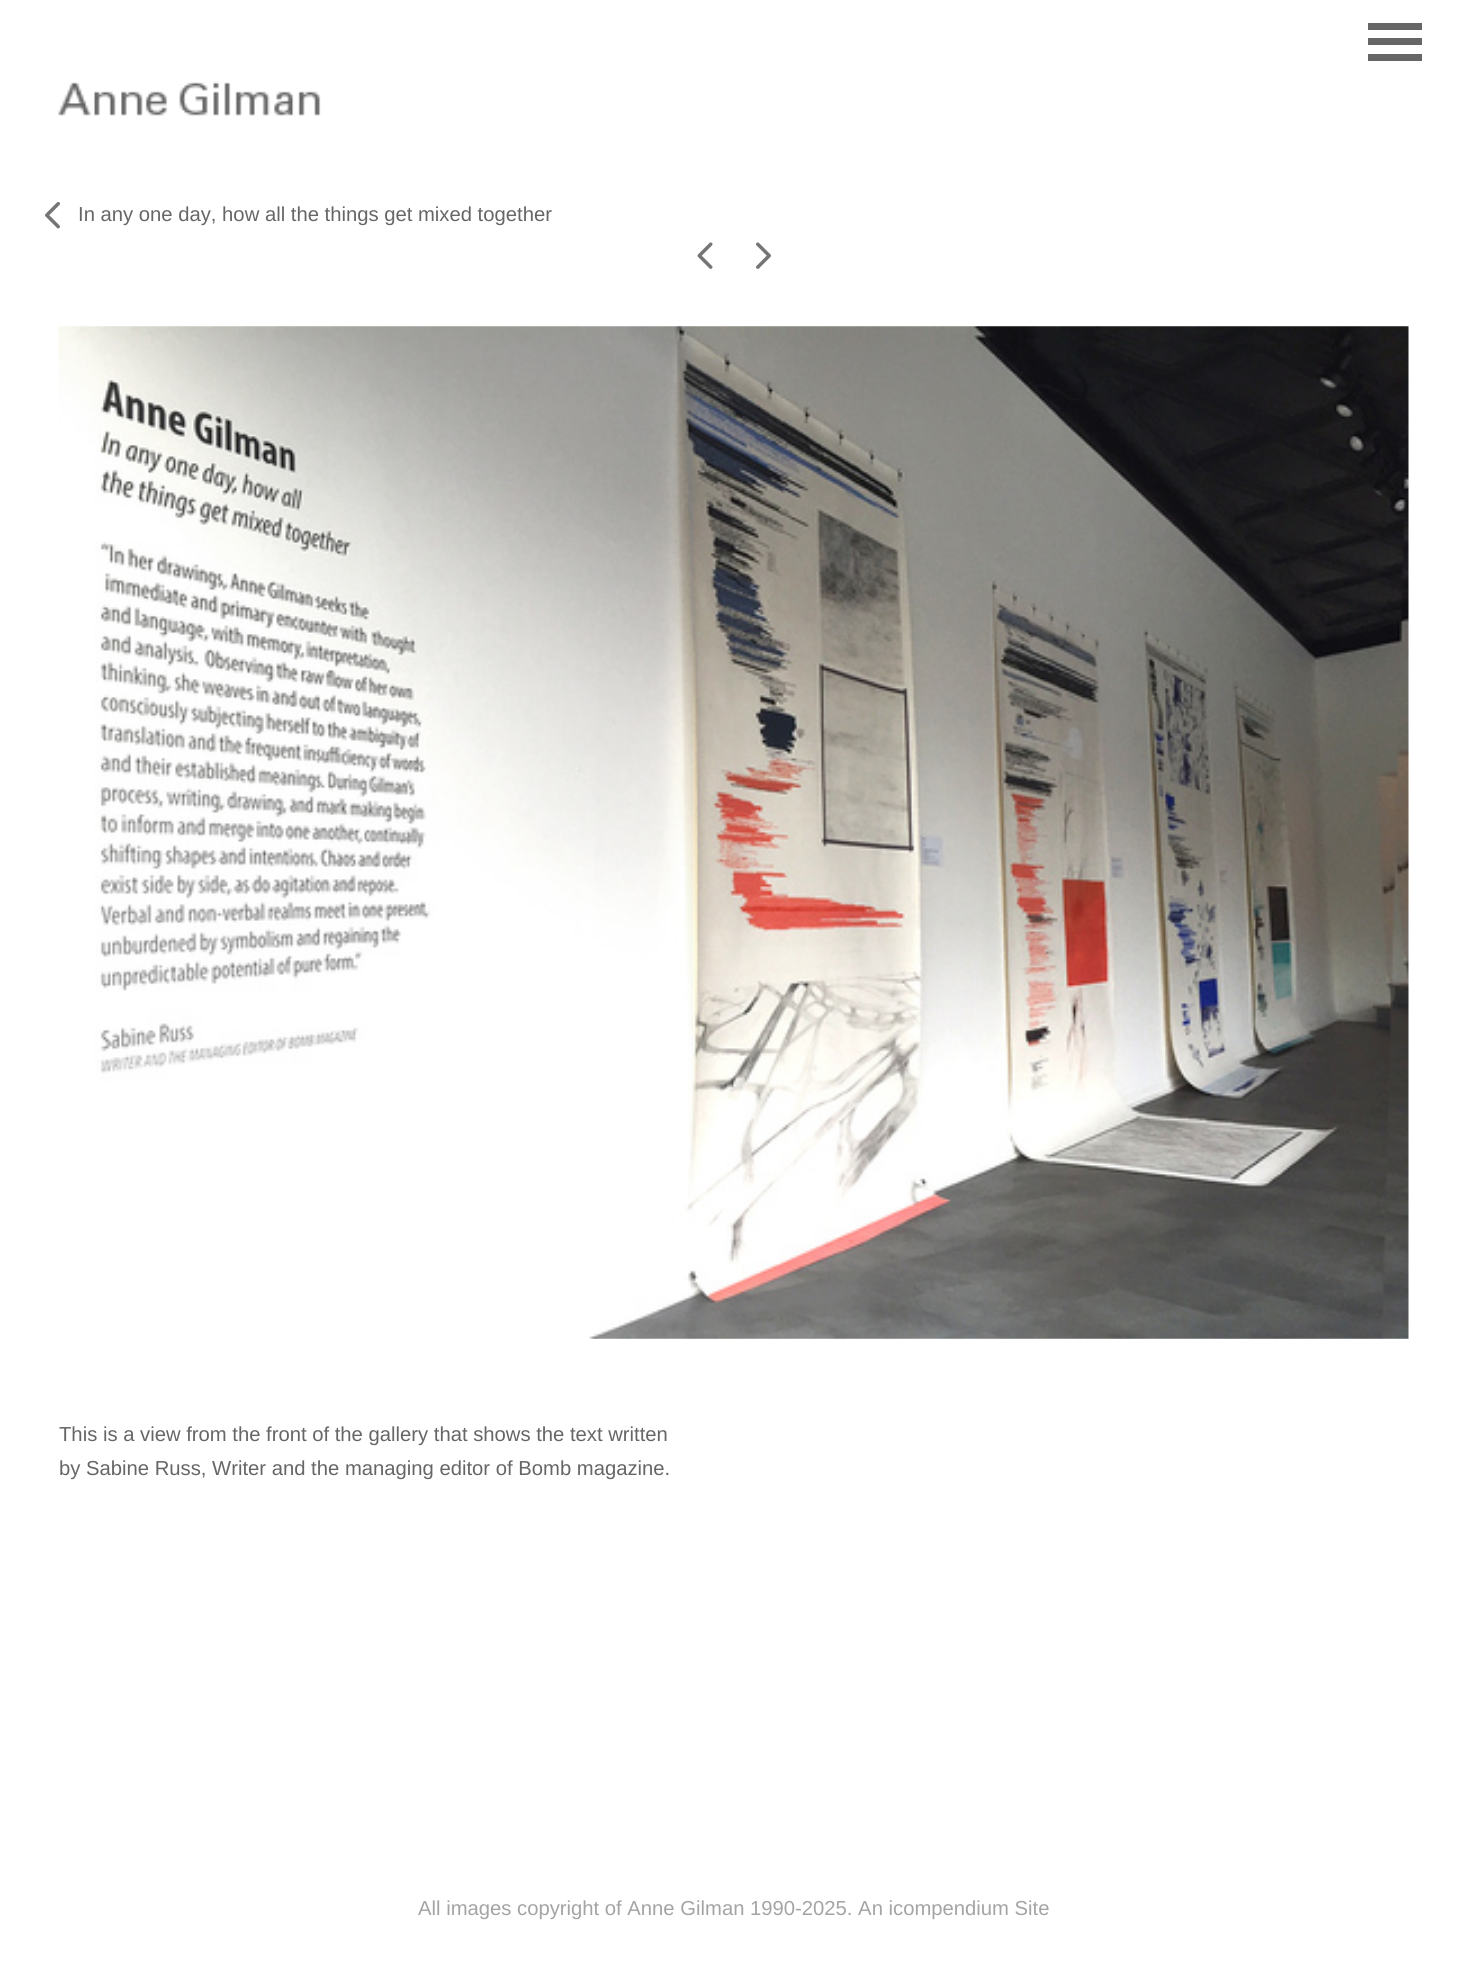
#include <cairo.h>
#include <math.h>
#include <stddef.h>

typedef struct { const char *family; double size; int italic, bold; unsigned color; } style_t;
static cairo_t *ctx;

static void ink(unsigned color) {
    cairo_set_source_rgb(ctx, (color >> 16) / 255.0, (color >> 8 & 255) / 255.0, (color & 255) / 255.0);
}

static void write(double x, double y, const char *s, const style_t *st) {
    cairo_select_font_face(ctx, st->family, st->italic ? CAIRO_FONT_SLANT_ITALIC : CAIRO_FONT_SLANT_NORMAL,
        st->bold ? CAIRO_FONT_WEIGHT_BOLD : CAIRO_FONT_WEIGHT_NORMAL);
    cairo_set_font_size(ctx, st->size);
    ink(st->color);
    cairo_move_to(ctx, x, y);
    cairo_show_text(ctx, s);
}

static void block(double x, double y, double w, double h, unsigned color) {
    ink(color);
    cairo_rectangle(ctx, x, y, w, h);
    cairo_fill(ctx);
}

static void paste(const char *path, double x, double y, double w, double h) {
    cairo_surface_t *image = cairo_image_surface_create_from_png(path);
    cairo_save(ctx);
    cairo_set_source_surface(ctx, image, x, y);
    cairo_rectangle(ctx, x, y, w, h);
    cairo_fill(ctx);
    cairo_restore(ctx);
    cairo_surface_destroy(image);
}

static const style_t s1 = {"Liberation Sans", 20.25, 0, 0, 0x666666};
static const style_t s2 = {"Liberation Sans", 20.25, 0, 0, 0xa4a4a4};

int main(void) {
    cairo_surface_t *surface = cairo_image_surface_create(CAIRO_FORMAT_RGB24, 1467, 1981);
    ctx = cairo_create(surface);
    cairo_font_options_t *options = cairo_font_options_create();
    cairo_font_options_set_hint_metrics(options, CAIRO_HINT_METRICS_OFF);
    cairo_font_options_set_hint_style(options, CAIRO_HINT_STYLE_NONE);
    cairo_set_font_options(ctx, options);
    cairo_set_miter_limit(ctx, 4);
    ink(0xffffff);
    cairo_paint(ctx);
    block(1368, 23, 54, 7, 0x666666);
    block(1368, 38, 54, 7, 0x666666);
    block(1368, 54, 54, 7, 0x666666);
    paste("pic1.png", 58, 82, 263, 34);
    paste("pic2.png", 45, 202, 15, 27);
    write(78, 221, "In any one day, how all the things get mixed together", &s1);
    paste("pic3.png", 697, 242, 16, 27);
    paste("pic4.png", 756, 242, 15, 27);
    paste("pic5.png", 58, 326, 1351, 1013);
    write(59, 1441, "This is a view from the front of the gallery that shows the text written", &s1);
    write(59, 1475, "by Sabine Russ, Writer and the managing editor of Bomb magazine.", &s1);
    write(418, 1915, "All images copyright of Anne Gilman 1990-2025. An icompendium Site", &s2);
    cairo_surface_write_to_png(surface, "screenshot.png");
    cairo_font_options_destroy(options);
    cairo_destroy(ctx);
    cairo_surface_destroy(surface);
    return 0;
}
